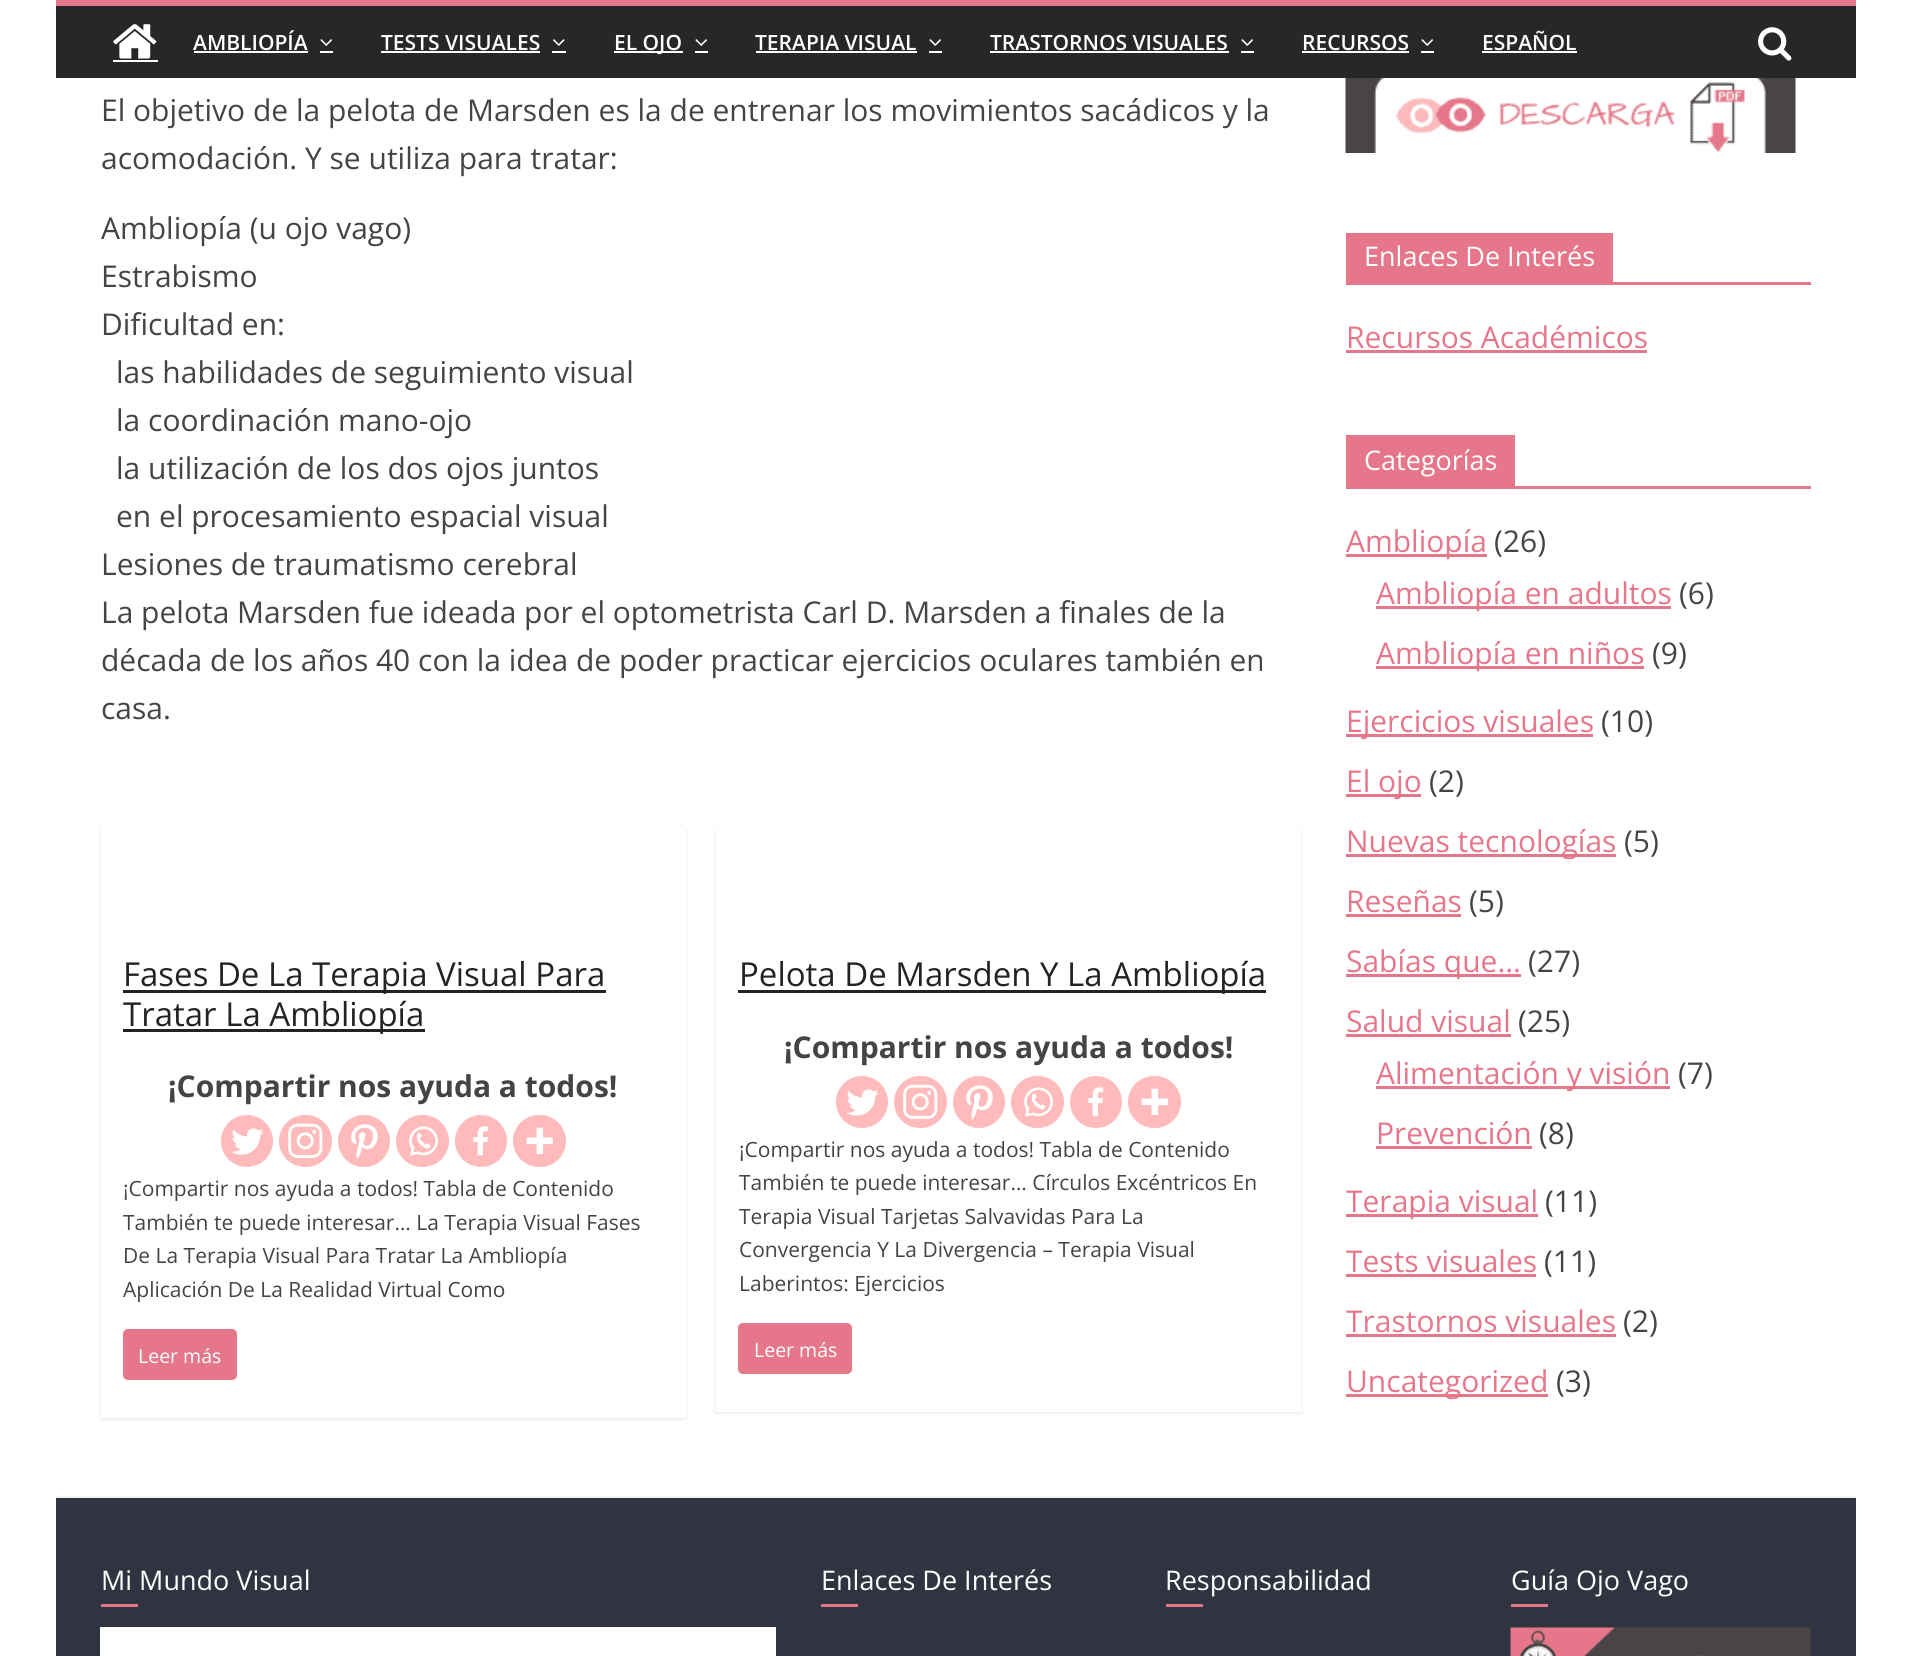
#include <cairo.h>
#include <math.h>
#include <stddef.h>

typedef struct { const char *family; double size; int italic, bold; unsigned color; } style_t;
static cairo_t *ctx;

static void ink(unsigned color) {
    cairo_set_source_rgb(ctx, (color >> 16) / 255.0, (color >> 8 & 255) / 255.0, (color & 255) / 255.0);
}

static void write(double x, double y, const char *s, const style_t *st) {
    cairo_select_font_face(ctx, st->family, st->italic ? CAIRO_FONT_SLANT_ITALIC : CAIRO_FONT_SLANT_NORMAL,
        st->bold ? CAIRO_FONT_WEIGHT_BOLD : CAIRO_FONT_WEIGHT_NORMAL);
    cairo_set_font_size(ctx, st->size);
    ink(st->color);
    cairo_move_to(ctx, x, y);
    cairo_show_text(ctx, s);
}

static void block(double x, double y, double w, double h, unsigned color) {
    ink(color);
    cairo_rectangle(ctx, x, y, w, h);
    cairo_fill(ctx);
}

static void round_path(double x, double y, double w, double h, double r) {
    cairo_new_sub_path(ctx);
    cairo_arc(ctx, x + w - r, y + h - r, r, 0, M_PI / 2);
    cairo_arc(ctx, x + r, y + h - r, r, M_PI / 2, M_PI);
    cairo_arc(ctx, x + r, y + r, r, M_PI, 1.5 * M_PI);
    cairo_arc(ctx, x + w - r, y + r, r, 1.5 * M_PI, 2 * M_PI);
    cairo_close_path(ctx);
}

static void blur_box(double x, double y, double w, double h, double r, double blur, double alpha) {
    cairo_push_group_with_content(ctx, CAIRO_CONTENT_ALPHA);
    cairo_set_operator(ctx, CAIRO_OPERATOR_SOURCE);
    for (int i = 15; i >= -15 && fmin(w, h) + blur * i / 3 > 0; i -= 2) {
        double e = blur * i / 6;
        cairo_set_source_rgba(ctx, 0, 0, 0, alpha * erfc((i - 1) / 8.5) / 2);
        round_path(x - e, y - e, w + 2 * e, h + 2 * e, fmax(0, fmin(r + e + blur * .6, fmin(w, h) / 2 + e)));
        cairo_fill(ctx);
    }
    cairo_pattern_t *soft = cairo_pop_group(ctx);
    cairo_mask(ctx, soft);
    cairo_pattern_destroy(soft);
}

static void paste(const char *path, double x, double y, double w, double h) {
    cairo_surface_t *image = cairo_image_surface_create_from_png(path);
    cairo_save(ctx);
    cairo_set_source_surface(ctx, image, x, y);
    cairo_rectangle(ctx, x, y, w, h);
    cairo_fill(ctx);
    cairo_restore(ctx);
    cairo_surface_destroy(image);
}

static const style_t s1 = {"Open Sans SemiBold", 21, 0, 0, 0xffffff};
static const style_t s2 = {"Open Sans", 30, 0, 0, 0x444444};
static const style_t s3 = {"Open Sans", 33, 0, 0, 0x232323};
static const style_t s4 = {"Open Sans", 30, 0, 1, 0x444444};
static const style_t s5 = {"Open Sans", 21, 0, 0, 0x444444};
static const style_t s6 = {"Open Sans", 19.5, 0, 0, 0xffffff};
static const style_t s7 = {"Open Sans", 27, 0, 0, 0xffffff};
static const style_t s8 = {"Open Sans", 30, 0, 0, 0xe6768a};

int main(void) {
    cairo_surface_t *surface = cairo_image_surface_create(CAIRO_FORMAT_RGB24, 1911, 1656);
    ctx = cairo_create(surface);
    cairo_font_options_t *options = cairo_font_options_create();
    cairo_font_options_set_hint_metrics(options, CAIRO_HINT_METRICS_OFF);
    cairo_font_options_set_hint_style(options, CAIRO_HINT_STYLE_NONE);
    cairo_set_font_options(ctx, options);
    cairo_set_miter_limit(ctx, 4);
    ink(0xffffff);
    cairo_paint(ctx);
    block(56, 6, 1800, 72, 0x27272a);
    block(56, 0, 1800, 6, 0xe6768a);
    paste("pic1.png", 113, 24, 44, 35);
    block(113, 60, 45, 2, 0xffffff);
    write(193, 50, "AMBLIOPÍA", &s1);
    block(194, 51, 114, 2, 0xffffff);
    block(320, 51, 13, 2, 0xffffff);
    paste("pic2.png", 320, 39, 12, 7);
    write(381, 50, "TESTS VISUALES", &s1);
    block(381, 51, 159, 2, 0xffffff);
    block(552, 51, 14, 2, 0xffffff);
    paste("pic3.png", 553, 39, 12, 7);
    block(614, 51, 69, 2, 0xffffff);
    write(614, 50, "EL OJO", &s1);
    block(695, 51, 13, 2, 0xffffff);
    paste("pic2.png", 695, 39, 12, 7);
    write(755, 50, "TERAPIA VISUAL", &s1);
    block(756, 51, 161, 2, 0xffffff);
    block(929, 51, 13, 2, 0xffffff);
    paste("pic2.png", 929, 39, 12, 7);
    write(990, 50, "TRASTORNOS VISUALES", &s1);
    block(990, 51, 239, 2, 0xffffff);
    block(1241, 51, 13, 2, 0xffffff);
    paste("pic2.png", 1241, 39, 12, 7);
    write(1302, 50, "RECURSOS", &s1);
    block(1302, 51, 107, 2, 0xffffff);
    block(1421, 51, 13, 2, 0xffffff);
    paste("pic2.png", 1421, 39, 12, 7);
    write(1482, 50, "ESPAÑOL", &s1);
    block(1482, 51, 95, 2, 0xffffff);
    paste("pic4.png", 1758, 27, 34, 34);
    write(101, 121, "El objetivo de la pelota de Marsden es la de entrenar los movimientos sacádicos y la", &s2);
    write(101, 169, "acomodación. Y se utiliza para tratar:", &s2);
    write(101, 239, "Ambliopía (u ojo vago)", &s2);
    write(101, 287, "Estrabismo", &s2);
    write(101, 335, "Dificultad en:", &s2);
    write(116, 383, "las habilidades de seguimiento visual", &s2);
    write(116, 431, "la coordinación mano-ojo", &s2);
    write(116, 479, "la utilización de los dos ojos juntos", &s2);
    write(116, 527, "en el procesamiento espacial visual", &s2);
    write(101, 575, "Lesiones de traumatismo cerebral", &s2);
    write(101, 623, "La pelota Marsden fue ideada por el optometrista Carl D. Marsden a finales de la", &s2);
    write(101, 671, "década de los años 40 con la idea de poder practicar ejercicios oculares también en", &s2);
    write(101, 719, "casa.", &s2);
    cairo_save(ctx);
    cairo_set_fill_rule(ctx, CAIRO_FILL_RULE_EVEN_ODD);
    cairo_new_path(ctx);
    cairo_move_to(ctx, 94, 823);
    cairo_line_to(ctx, 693, 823);
    cairo_line_to(ctx, 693, 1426);
    cairo_line_to(ctx, 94, 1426);
    cairo_close_path(ctx);
    cairo_move_to(ctx, 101, 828);
    cairo_line_to(ctx, 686, 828);
    cairo_line_to(ctx, 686, 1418);
    cairo_line_to(ctx, 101, 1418);
    cairo_close_path(ctx);
    cairo_clip(ctx);
    ink(0x000000);
    blur_box(101, 830, 585, 589, 0, 2, 0.1);
    cairo_restore(ctx);
    block(123, 990, 483, 3, 0x232323);
    write(123, 986, "Fases De La Terapia Visual Para", &s3);
    block(123, 1029, 302, 3, 0x232323);
    write(123, 1026, "Tratar La Ambliopía", &s3);
    write(168, 1097, "¡Compartir nos ayuda a todos!", &s4);
    ink(0xffbbbb);
    cairo_new_path(ctx);
    cairo_arc(ctx, 247, 1141, 26, 0, 2 * M_PI);
    cairo_fill(ctx);
    paste("pic5.png", 231, 1128, 33, 27);
    round_path(279, 1115, 53, 52, 26);
    cairo_fill(ctx);
    paste("pic6.png", 288, 1123, 35, 35);
    cairo_arc(ctx, 364, 1141, 26, 0, 2 * M_PI);
    cairo_fill(ctx);
    paste("pic7.png", 351, 1124, 27, 35);
    round_path(396, 1115, 53, 52, 26);
    cairo_fill(ctx);
    paste("pic8.png", 409, 1126, 29, 30);
    cairo_arc(ctx, 481, 1141, 26, 0, 2 * M_PI);
    cairo_fill(ctx);
    paste("pic9.png", 473, 1126, 16, 30);
    round_path(513, 1115, 53, 52, 26);
    cairo_fill(ctx);
    paste("pic10.png", 526, 1127, 27, 27);
    write(123, 1196, "¡Compartir nos ayuda a todos! Tabla de Contenido", &s5);
    write(123, 1230, "También te puede interesar… La Terapia Visual Fases", &s5);
    write(123, 1263, "De La Terapia Visual Para Tratar La Ambliopía", &s5);
    write(123, 1297, "Aplicación De La Realidad Virtual Como", &s5);
    ink(0xe6768a);
    round_path(123, 1329, 114, 51, 5);
    cairo_fill(ctx);
    write(138, 1363, "Leer más", &s6);
    cairo_save(ctx);
    cairo_set_fill_rule(ctx, CAIRO_FILL_RULE_EVEN_ODD);
    cairo_new_path(ctx);
    cairo_move_to(ctx, 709, 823);
    cairo_line_to(ctx, 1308, 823);
    cairo_line_to(ctx, 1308, 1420);
    cairo_line_to(ctx, 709, 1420);
    cairo_close_path(ctx);
    cairo_move_to(ctx, 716, 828);
    cairo_line_to(ctx, 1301, 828);
    cairo_line_to(ctx, 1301, 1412);
    cairo_line_to(ctx, 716, 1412);
    cairo_close_path(ctx);
    cairo_clip(ctx);
    ink(0x000000);
    blur_box(716, 830, 585, 583, 0, 2, 0.1);
    cairo_restore(ctx);
    block(738, 990, 528, 3, 0x232323);
    write(739, 986, "Pelota De Marsden Y La Ambliopía", &s3);
    write(784, 1058, "¡Compartir nos ayuda a todos!", &s4);
    ink(0xffbbbb);
    cairo_new_path(ctx);
    cairo_arc(ctx, 862, 1102, 26, 0, 2 * M_PI);
    cairo_fill(ctx);
    paste("pic5.png", 846, 1089, 33, 27);
    round_path(894, 1076, 53, 52, 26);
    cairo_fill(ctx);
    paste("pic6.png", 903, 1084, 35, 35);
    cairo_arc(ctx, 979, 1102, 26, 0, 2 * M_PI);
    cairo_fill(ctx);
    paste("pic7.png", 966, 1085, 27, 35);
    round_path(1011, 1076, 53, 52, 26);
    cairo_fill(ctx);
    paste("pic8.png", 1024, 1087, 29, 30);
    cairo_arc(ctx, 1096, 1102, 26, 0, 2 * M_PI);
    cairo_fill(ctx);
    paste("pic9.png", 1088, 1087, 16, 30);
    round_path(1128, 1076, 53, 52, 26);
    cairo_fill(ctx);
    paste("pic10.png", 1141, 1088, 27, 27);
    write(739, 1157, "¡Compartir nos ayuda a todos! Tabla de Contenido", &s5);
    write(739, 1190, "También te puede interesar… Círculos Excéntricos En", &s5);
    write(739, 1224, "Terapia Visual Tarjetas Salvavidas Para La", &s5);
    write(739, 1257, "Convergencia Y La Divergencia – Terapia Visual", &s5);
    write(739, 1291, "Laberintos: Ejercicios", &s5);
    ink(0xe6768a);
    round_path(738, 1323, 114, 51, 5);
    cairo_fill(ctx);
    write(754, 1357, "Leer más", &s6);
    paste("pic11.png", 1345, 78, 451, 75);
    block(1346, 282, 465, 3, 0xe6768a);
    block(1346, 233, 267, 49, 0xe6768a);
    write(1364, 266, "Enlaces De Interés", &s7);
    write(1346, 348, "Recursos Académicos", &s8);
    block(1346, 350, 301, 3, 0xe6768a);
    block(1346, 486, 465, 3, 0xe6768a);
    block(1346, 435, 169, 51, 0xe6768a);
    write(1364, 470, "Categorías", &s7);
    block(1346, 554, 141, 3, 0xe6768a);
    write(1346, 552, "Ambliopía", &s8);
    write(1494, 552, "(26)", &s2);
    block(1376, 606, 295, 3, 0xe6768a);
    write(1376, 604, "Ambliopía en adultos", &s8);
    write(1679, 604, "(6)", &s2);
    block(1376, 666, 268, 3, 0xe6768a);
    write(1376, 664, "Ambliopía en niños", &s8);
    write(1652, 664, "(9)", &s2);
    block(1346, 734, 247, 3, 0xe6768a);
    write(1346, 732, "Ejercicios visuales", &s8);
    write(1601, 732, "(10)", &s2);
    block(1346, 794, 75, 3, 0xe6768a);
    write(1346, 792, "El ojo", &s8);
    write(1429, 792, "(2)", &s2);
    block(1346, 854, 270, 3, 0xe6768a);
    write(1346, 852, "Nuevas tecnologías", &s8);
    write(1624, 852, "(5)", &s2);
    write(1346, 912, "Reseñas", &s8);
    block(1346, 914, 115, 3, 0xe6768a);
    write(1469, 912, "(5)", &s2);
    block(1346, 974, 175, 3, 0xe6768a);
    write(1346, 972, "Sabías que…", &s8);
    write(1528, 972, "(27)", &s2);
    write(1346, 1032, "Salud visual", &s8);
    block(1346, 1034, 165, 3, 0xe6768a);
    write(1518, 1032, "(25)", &s2);
    block(1376, 1086, 294, 3, 0xe6768a);
    write(1376, 1084, "Alimentación y visión", &s8);
    write(1678, 1084, "(7)", &s2);
    write(1376, 1144, "Prevención", &s8);
    block(1376, 1146, 156, 3, 0xe6768a);
    write(1539, 1144, "(8)", &s2);
    block(1346, 1214, 192, 3, 0xe6768a);
    write(1346, 1212, "Terapia visual", &s8);
    write(1545, 1212, "(11)", &s2);
    write(1346, 1272, "Tests visuales", &s8);
    block(1346, 1274, 190, 3, 0xe6768a);
    write(1544, 1272, "(11)", &s2);
    write(1346, 1332, "Trastornos visuales", &s8);
    block(1346, 1334, 270, 3, 0xe6768a);
    write(1623, 1332, "(2)", &s2);
    block(1346, 1394, 202, 3, 0xe6768a);
    write(1346, 1392, "Uncategorized", &s8);
    write(1556, 1392, "(3)", &s2);
    block(56, 1498, 1800, 158, 0x303440);
    block(56, 1496, 1800, 2, 0xf2f2f2);
    write(101, 1590, "Mi Mundo Visual", &s7);
    block(101, 1604, 37, 3, 0xe6768a);
    block(100, 1627, 676, 29, 0xffffff);
    write(821, 1590, "Enlaces De Interés", &s7);
    block(821, 1604, 37, 3, 0xe6768a);
    write(1165, 1590, "Responsabilidad", &s7);
    block(1166, 1604, 37, 3, 0xe6768a);
    write(1511, 1590, "Guía Ojo Vago", &s7);
    block(1511, 1604, 37, 3, 0xe6768a);
    paste("pic12.png", 1510, 1627, 301, 29);
    cairo_surface_write_to_png(surface, "screenshot.png");
    cairo_font_options_destroy(options);
    cairo_destroy(ctx);
    cairo_surface_destroy(surface);
    return 0;
}
